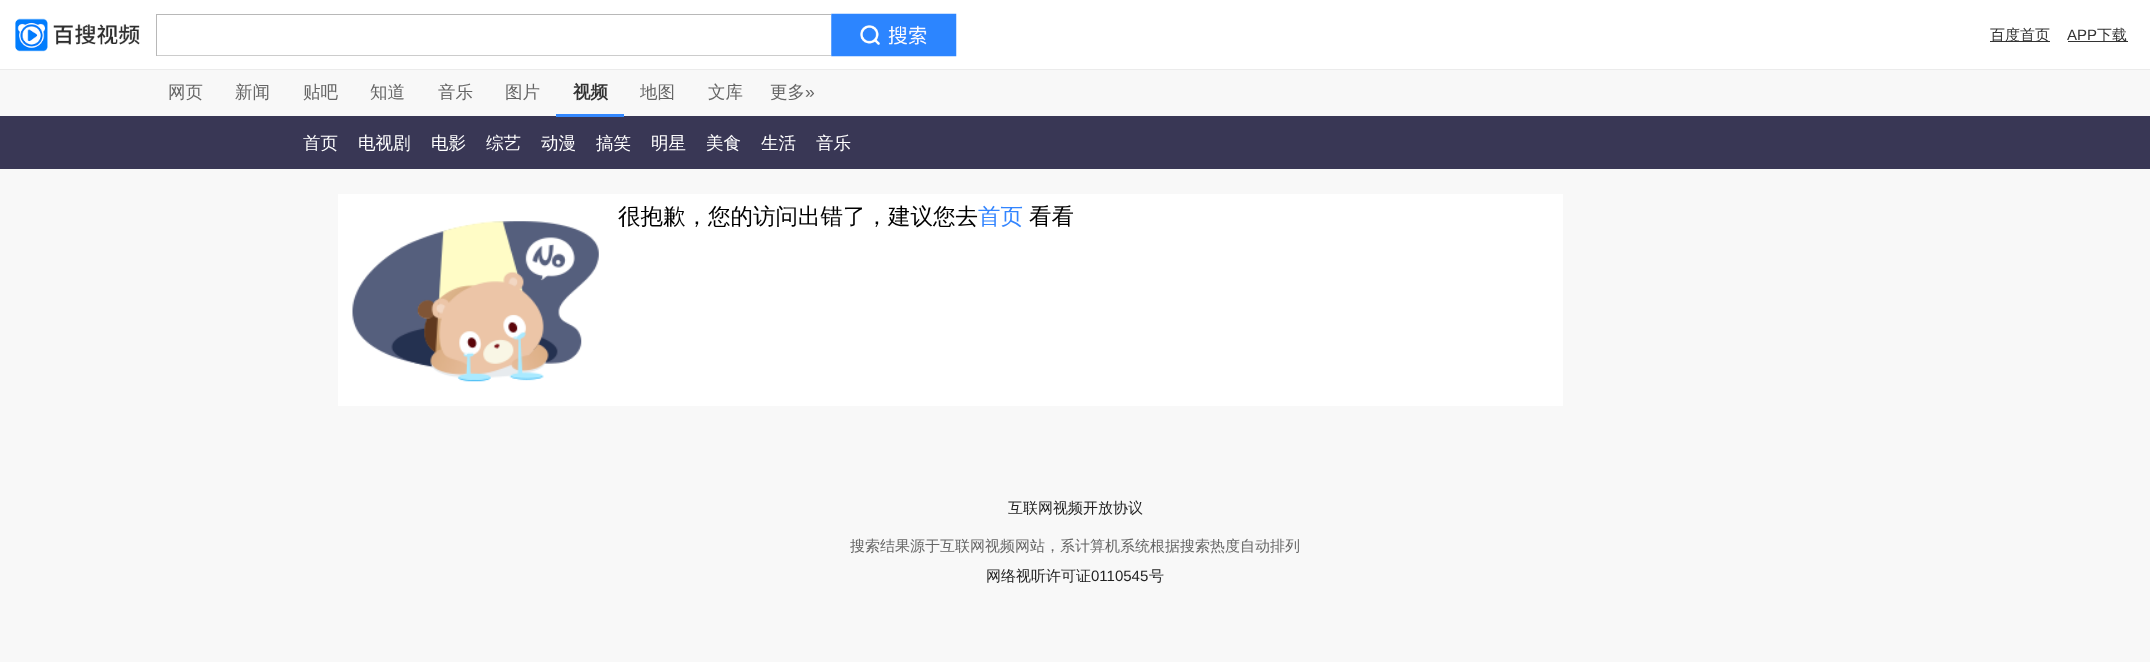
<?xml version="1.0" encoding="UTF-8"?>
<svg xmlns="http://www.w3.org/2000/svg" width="2150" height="662">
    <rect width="100%" height="100%" fill="#F8F8F8"/>
    <rect x="0" y="0" width="2150" height="69" fill="#FFFFFF"/>
    <rect x="0" y="69" width="2150" height="1" fill="#EBEBEB"/>
    <image x="15" y="18" width="125" height="34" href="img_01.png"/>
    <rect x="156" y="14" width="675" height="1" fill="#B8B8B8"/>
    <rect x="156" y="55" width="675" height="1" fill="#CCCCCC"/>
    <rect x="156" y="14" width="1" height="42" fill="#B8B8B8"/>
    <image x="831" y="13" width="126" height="44" href="img_02.png"/>
    <rect x="1990" y="41" width="60" height="1" fill="#333333"/>
    <text x="1990" y="40" font-family="WenQuanYi Zen Hei" font-size="15" font-weight="500" fill="#323232">百度首页</text>
    <text x="2067" y="40" font-family="Liberation Sans" font-size="15" fill="#323232">APP</text>
    <rect x="2068" y="41" width="60" height="1" fill="#333333"/>
    <text x="2097" y="40" font-family="WenQuanYi Zen Hei" font-size="15" font-weight="500" fill="#323232">下载</text>
    <text x="168" y="98" font-family="WenQuanYi Zen Hei" font-size="17.5" font-weight="500" fill="#666666">网页</text>
    <text x="235" y="98" font-family="WenQuanYi Zen Hei" font-size="17.5" font-weight="500" fill="#666666">新闻</text>
    <text x="303" y="98" font-family="WenQuanYi Zen Hei" font-size="17.5" font-weight="500" fill="#666666">贴吧</text>
    <text x="370" y="98" font-family="WenQuanYi Zen Hei" font-size="17.5" font-weight="500" fill="#666666">知道</text>
    <text x="438" y="98" font-family="WenQuanYi Zen Hei" font-size="17.5" font-weight="500" fill="#666666">音乐</text>
    <text x="505" y="98" font-family="WenQuanYi Zen Hei" font-size="17.5" font-weight="500" fill="#666666">图片</text>
    <rect x="0" y="116" width="2150" height="53" fill="#393755"/>
    <rect x="556" y="114" width="68" height="3" fill="#3388FF"/>
    <text x="573" y="98" font-family="WenQuanYi Zen Hei" font-size="17.5" font-weight="700" fill="#323232">视频</text>
    <text x="640" y="98" font-family="WenQuanYi Zen Hei" font-size="17.5" font-weight="500" fill="#666666">地图</text>
    <text x="708" y="98" font-family="WenQuanYi Zen Hei" font-size="17.5" font-weight="500" fill="#666666">文库</text>
    <text x="770" y="98" font-family="WenQuanYi Zen Hei" font-size="17.5" font-weight="500" fill="#666666">更多</text>
    <text x="805" y="98" font-family="Liberation Sans" font-size="17.5" fill="#666666">»</text>
    <text x="303" y="149" font-family="WenQuanYi Zen Hei" font-size="17.5" font-weight="500" fill="#FFFFFF">首页</text>
    <text x="358" y="149" font-family="WenQuanYi Zen Hei" font-size="17.5" font-weight="500" fill="#FFFFFF">电视剧</text>
    <text x="431" y="149" font-family="WenQuanYi Zen Hei" font-size="17.5" font-weight="500" fill="#FFFFFF">电影</text>
    <text x="486" y="149" font-family="WenQuanYi Zen Hei" font-size="17.5" font-weight="500" fill="#FFFFFF">综艺</text>
    <text x="541" y="149" font-family="WenQuanYi Zen Hei" font-size="17.5" font-weight="500" fill="#FFFFFF">动漫</text>
    <text x="596" y="149" font-family="WenQuanYi Zen Hei" font-size="17.5" font-weight="500" fill="#FFFFFF">搞笑</text>
    <text x="651" y="149" font-family="WenQuanYi Zen Hei" font-size="17.5" font-weight="500" fill="#FFFFFF">明星</text>
    <text x="706" y="149" font-family="WenQuanYi Zen Hei" font-size="17.5" font-weight="500" fill="#FFFFFF">美食</text>
    <text x="761" y="149" font-family="WenQuanYi Zen Hei" font-size="17.5" font-weight="500" fill="#FFFFFF">生活</text>
    <text x="816" y="149" font-family="WenQuanYi Zen Hei" font-size="17.5" font-weight="500" fill="#FFFFFF">音乐</text>
    <rect x="338" y="194" width="1225" height="212" fill="#FFFFFF"/>
    <text x="618" y="224" font-family="WenQuanYi Zen Hei" font-size="22.5" font-weight="500" fill="#000000">很抱歉，您的访问出错了，建议您去</text>
    <text x="978" y="224" font-family="WenQuanYi Zen Hei" font-size="22.5" font-weight="500" fill="#3385FF">首页</text>
    <text x="1029" y="224" font-family="WenQuanYi Zen Hei" font-size="22.5" font-weight="500" fill="#000000">看看</text>
    <image x="352" y="221" width="247" height="161" href="img_03.png"/>
    <text x="1008" y="513" font-family="WenQuanYi Zen Hei" font-size="15" font-weight="500" fill="#222222">互联网视频开放协议</text>
    <text x="850" y="551" font-family="WenQuanYi Zen Hei" font-size="15" font-weight="500" fill="#666666">搜索结果源于互联网视频网站，系计算机系统根据搜索热度自动排列</text>
    <text x="986" y="581" font-family="WenQuanYi Zen Hei" font-size="15" font-weight="500" fill="#222222">网络视听许可证</text>
    <text x="1091" y="581" font-family="Liberation Sans" font-size="15" fill="#222222">0110545</text>
    <text x="1149" y="581" font-family="WenQuanYi Zen Hei" font-size="15" font-weight="500" fill="#222222">号</text>
</svg>
